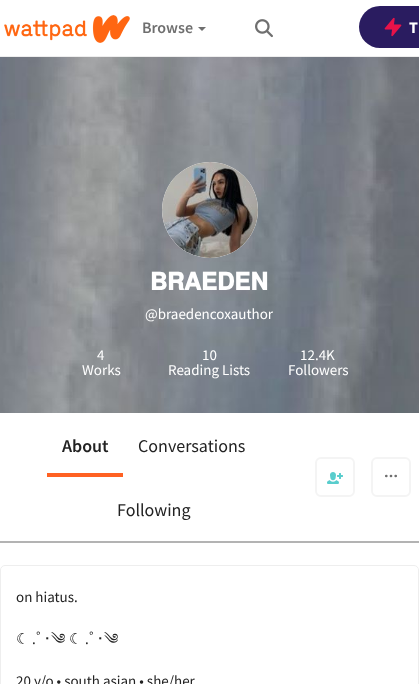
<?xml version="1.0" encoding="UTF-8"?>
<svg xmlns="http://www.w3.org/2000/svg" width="419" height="684">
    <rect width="100%" height="100%" fill="#FFFFFF"/>
    <rect x="0" y="56" width="419" height="1" fill="#EEEEEE"/>
    <image x="4" y="15" width="126" height="28" href="img_01.png"/>
    <text x="142" y="33" font-family="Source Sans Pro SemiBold" font-size="16" font-weight="600" fill="#6F6F6F">Browse</text>
    <path d="M 198 27 H 206 L 202 31 Z" fill="#6F6F6F"/>
    <image x="255" y="19" width="18" height="19" href="img_02.png"/>
    <rect x="359" y="6" width="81" height="42" rx="21" fill="#2A1C60"/>
    <image x="384" y="17" width="18" height="20" href="img_03.png"/>
    <text x="409" y="33" font-family="Source Sans Pro" font-size="16" font-weight="700" fill="#FFFFFF">T</text>
    <image x="0" y="57" width="419" height="356" href="img_04.png"/>
    <circle cx="210" cy="210" r="48" fill="#EEEEEE"/>
    <image x="162" y="162" width="96" height="96" href="img_05.png"/>
    <text x="150" y="290" font-family="FreeSans" font-size="24" font-weight="700" fill="#FFFFFF">𝐁𝐑𝐀𝐄𝐃𝐄𝐍</text>
    <text x="145" y="319" font-family="Source Sans Pro" font-size="15" fill="#FFFFFF">@braedencoxauthor</text>
    <text x="97" y="360" font-family="Source Sans Pro" font-size="15" fill="#FFFFFF">4</text>
    <text x="82" y="375" font-family="Source Sans Pro" font-size="15" fill="#FFFFFF">Works</text>
    <text x="202" y="360" font-family="Source Sans Pro" font-size="15" fill="#FFFFFF">10</text>
    <text x="168" y="375" font-family="Source Sans Pro" font-size="15" fill="#FFFFFF">Reading Lists</text>
    <text x="300" y="360" font-family="Source Sans Pro" font-size="15" fill="#FFFFFF">12.4K</text>
    <text x="288" y="375" font-family="Source Sans Pro" font-size="15" fill="#FFFFFF">Followers</text>
    <rect x="0" y="541" width="419" height="2" fill="#B3B3B3"/>
    <rect x="47" y="473" width="76" height="4" fill="#FF6122"/>
    <text x="62" y="452" font-family="Source Sans Pro SemiBold" font-size="18" font-weight="600" fill="#222222">About</text>
    <text x="138" y="452" font-family="Source Sans Pro" font-size="18" fill="#222222">Conversations</text>
    <text x="117" y="516" font-family="Source Sans Pro" font-size="18" fill="#222222">Following</text>
    <rect x="316" y="458" width="38" height="38" rx="5" fill="none" stroke="#F4F4F4" stroke-width="2"/>
    <image x="327" y="472" width="16" height="12" href="img_06.png"/>
    <rect x="372" y="458" width="38" height="38" rx="5" fill="none" stroke="#F4F4F4" stroke-width="2"/>
    <circle cx="386.3" cy="476" r="0.7" fill="none" stroke="#6F6F6F" stroke-width="1.3"/>
    <circle cx="391" cy="476" r="0.7" fill="none" stroke="#6F6F6F" stroke-width="1.3"/>
    <circle cx="395.7" cy="476" r="0.7" fill="none" stroke="#6F6F6F" stroke-width="1.3"/>
    <rect x="0.5" y="565.5" width="418" height="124" rx="4.5" fill="none" stroke="#EEEEEE"/>
    <text x="16" y="602" font-family="Source Sans Pro" font-size="15" fill="#222222">on hiatus.</text>
    <text x="16" y="644" font-family="DejaVu Sans" font-size="15" fill="#222222">☾</text>
    <text x="32" y="644" font-family="Source Sans Pro" font-size="15" fill="#222222">.</text>
    <text x="36" y="644" font-family="IPAGothic" font-size="15" fill="#222222">ﾟ･</text>
    <text x="51" y="644" font-family="Noto Serif Tibetan" font-size="15" fill="#222222">༄</text>
    <text x="69" y="644" font-family="DejaVu Sans" font-size="15" fill="#222222">☾</text>
    <text x="85" y="644" font-family="Source Sans Pro" font-size="15" fill="#222222">.</text>
    <text x="89" y="644" font-family="IPAGothic" font-size="15" fill="#222222">ﾟ･</text>
    <text x="104" y="644" font-family="Noto Serif Tibetan" font-size="15" fill="#222222">༄</text>
    <text x="16" y="686" font-family="Source Sans Pro" font-size="15" fill="#222222">20 y/o • south asian • she/her</text>
</svg>
